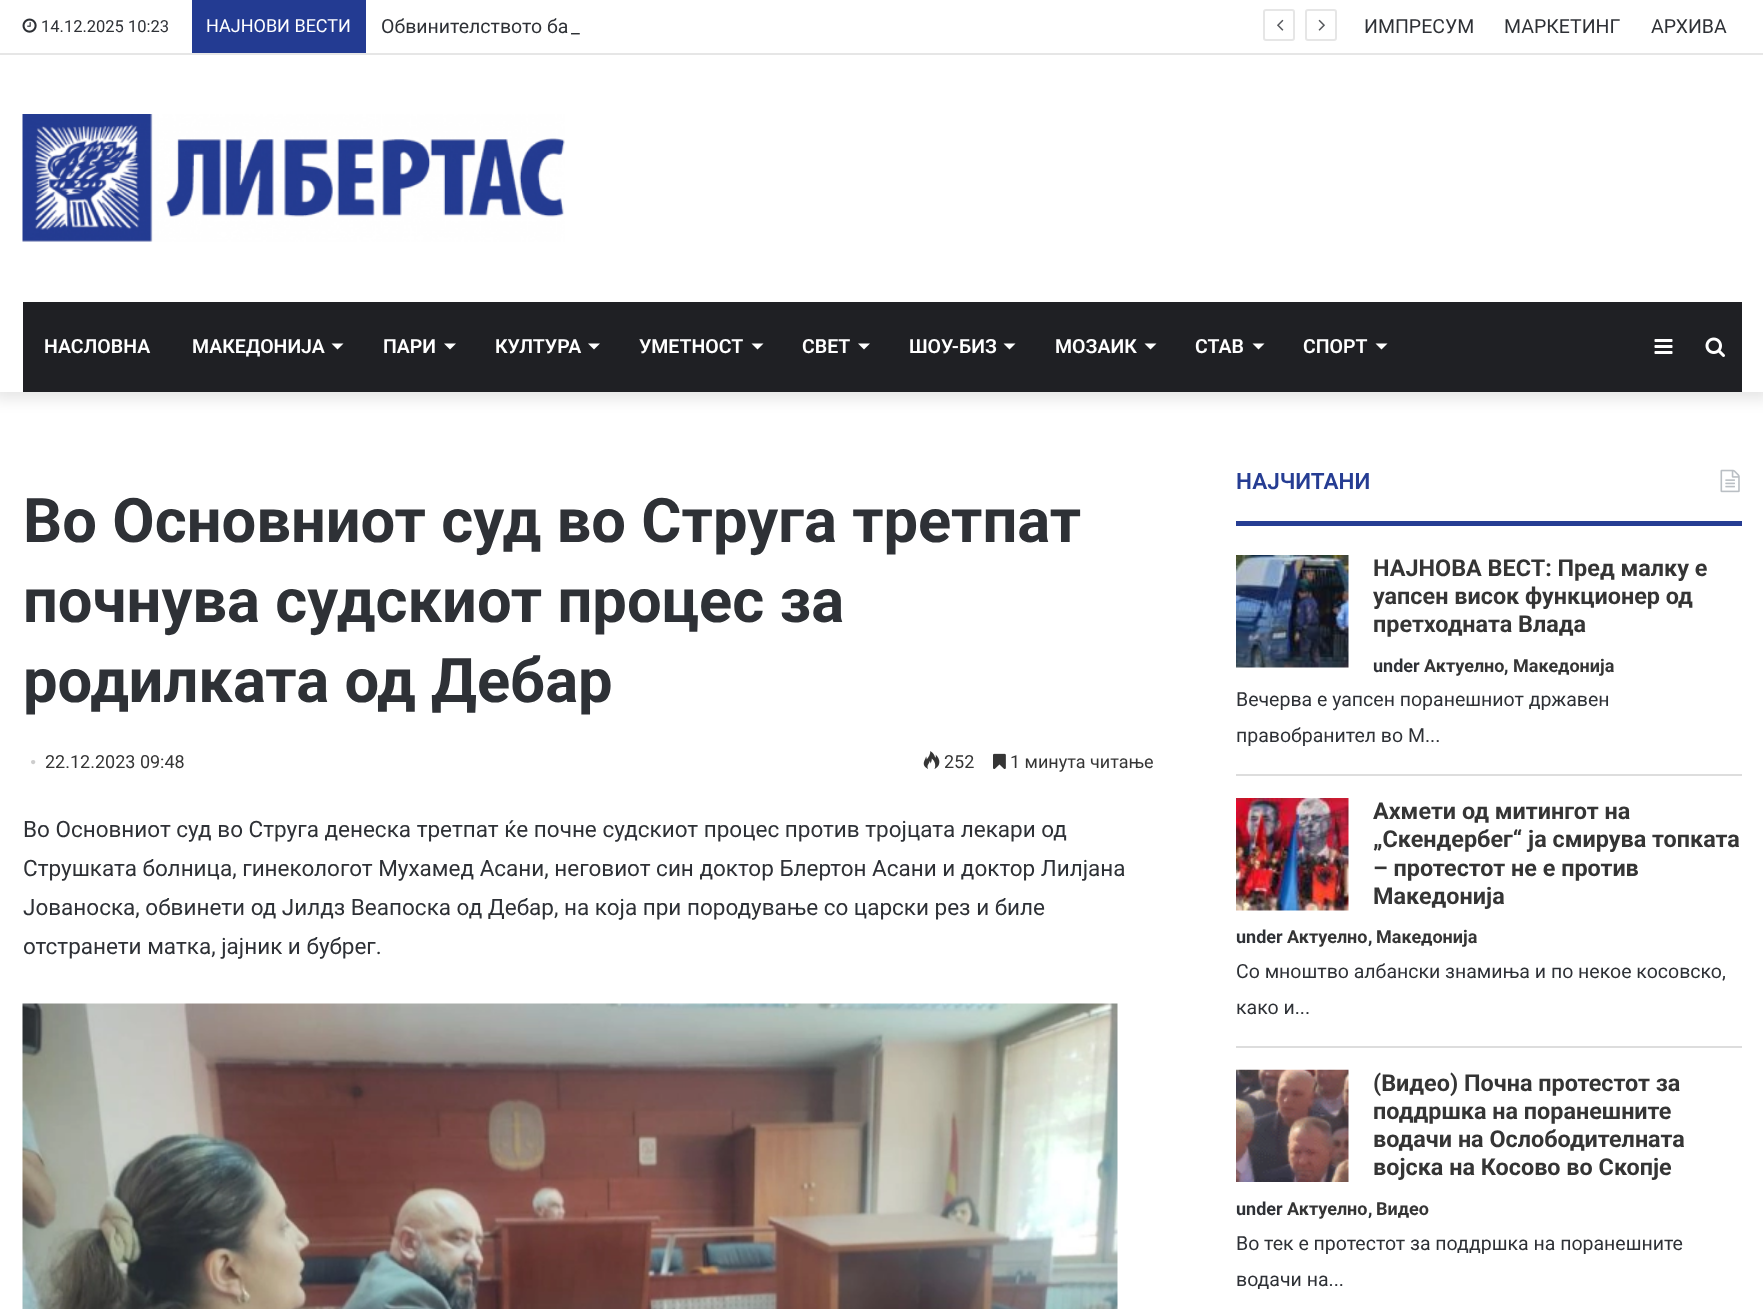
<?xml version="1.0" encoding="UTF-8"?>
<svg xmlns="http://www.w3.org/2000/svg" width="1763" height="1309">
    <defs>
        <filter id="blur1" x="-50%" y="-200%" width="200%" height="500%"><feGaussianBlur stdDeviation="7.5"/></filter>
    </defs>
    <rect width="100%" height="100%" fill="#FFFFFF"/>
    <rect x="-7" y="-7" width="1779" height="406" fill="#000000" fill-opacity="0.1" filter="url(#blur1)"/>
    <rect x="0" y="0" width="1763" height="392" fill="#FFFFFF"/>
    <rect x="0" y="53" width="1763" height="2" fill="#E6E6E6"/>
    <image x="22" y="18" width="15" height="15" href="img_01.png"/>
    <text x="41" y="32" font-family="Roboto" font-size="16.5" fill="#2E3136">14.12.2025 10:23</text>
    <rect x="192" y="0" width="174" height="53" fill="#233B92"/>
    <text x="206" y="32" font-family="Roboto" font-size="18" fill="#FFFFFF">НАЈНОВИ ВЕСТИ</text>
    <text x="381" y="33" font-family="Roboto" font-size="19.5" fill="#2E3136">Обвинителството ба</text>
    <text x="571" y="33" font-family="Roboto" font-size="19.5" fill="#2E3136">_</text>
    <rect x="1264" y="10" width="30" height="30" rx="2" fill="none" stroke="#E6E6E6" stroke-width="2"/>
    <image x="1277" y="19" width="7" height="12" href="img_02.png"/>
    <rect x="1306" y="10" width="30" height="30" rx="2" fill="none" stroke="#E6E6E6" stroke-width="2"/>
    <image x="1318" y="19" width="7" height="12" href="img_03.png"/>
    <text x="1364" y="33" font-family="Roboto" font-size="19.5" fill="#2E3136">ИМПРЕСУМ</text>
    <text x="1504" y="33" font-family="Roboto" font-size="19.5" fill="#2E3136">МАРКЕТИНГ</text>
    <text x="1651" y="33" font-family="Roboto" font-size="19.5" fill="#2E3136">АРХИВА</text>
    <image x="22" y="114" width="543" height="128" href="img_04.png"/>
    <rect x="23" y="302" width="1719" height="90" fill="#1F2024"/>
    <text x="44" y="353" font-family="Roboto" font-size="19.5" font-weight="600" fill="#FFFFFF">НАСЛОВНА</text>
    <text x="192" y="353" font-family="Roboto" font-size="19.5" font-weight="600" fill="#FFFFFF">МАКЕДОНИЈА</text>
    <path d="M 331.5 343.5 H 343.5 L 337.5 349.5 Z" fill="#FFFFFF"/>
    <text x="383" y="353" font-family="Roboto" font-size="19.5" font-weight="600" fill="#FFFFFF">ПАРИ</text>
    <path d="M 444 343.5 H 456 L 450 349.5 Z" fill="#FFFFFF"/>
    <text x="495" y="353" font-family="Roboto" font-size="19.5" font-weight="600" fill="#FFFFFF">КУЛТУРА</text>
    <path d="M 588 343.5 H 600 L 594 349.5 Z" fill="#FFFFFF"/>
    <text x="639" y="353" font-family="Roboto" font-size="19.5" font-weight="600" fill="#FFFFFF">УМЕТНОСТ</text>
    <path d="M 751.5 343.5 H 763.5 L 757.5 349.5 Z" fill="#FFFFFF"/>
    <text x="802" y="353" font-family="Roboto" font-size="19.5" font-weight="600" fill="#FFFFFF">СВЕТ</text>
    <path d="M 858 343.5 H 870 L 864 349.5 Z" fill="#FFFFFF"/>
    <text x="909" y="353" font-family="Roboto" font-size="19.5" font-weight="600" fill="#FFFFFF">ШОУ-БИЗ</text>
    <path d="M 1003.5 343.5 H 1015.5 L 1009.5 349.5 Z" fill="#FFFFFF"/>
    <text x="1055" y="353" font-family="Roboto" font-size="19.5" font-weight="600" fill="#FFFFFF">МОЗАИК</text>
    <path d="M 1144.5 343.5 H 1156.5 L 1150.5 349.5 Z" fill="#FFFFFF"/>
    <text x="1195" y="353" font-family="Roboto" font-size="19.5" font-weight="600" fill="#FFFFFF">СТАВ</text>
    <path d="M 1252.5 343.5 H 1264.5 L 1258.5 349.5 Z" fill="#FFFFFF"/>
    <text x="1303" y="353" font-family="Roboto" font-size="19.5" font-weight="600" fill="#FFFFFF">СПОРТ</text>
    <path d="M 1375.5 343.5 H 1387.5 L 1381.5 349.5 Z" fill="#FFFFFF"/>
    <image x="1654" y="339" width="19" height="15" href="img_05.png"/>
    <image x="1705" y="337" width="20" height="20" href="img_06.png"/>
    <text font-family="Roboto" font-size="61.5" font-weight="700" fill="#2E3136">
        <tspan x="23" y="542">Во Основниот суд во Струга третпат</tspan>
        <tspan x="23" y="622">почнува судскиот процес за</tspan>
        <tspan x="23" y="702">родилката од Дебар</tspan>
    </text>
    <text x="30" y="768" font-family="Liberation Serif" font-size="18" fill="#CDCDCD">•</text>
    <text x="45" y="768" font-family="Roboto" font-size="18" fill="#353535">22.12.2023 09:48</text>
    <image x="923" y="751" width="17" height="18" href="img_07.png"/>
    <text x="944" y="768" font-family="Roboto" font-size="18" fill="#353535">252</text>
    <image x="993" y="753" width="13" height="16" href="img_08.png"/>
    <text x="1010" y="768" font-family="Roboto" font-size="18" fill="#353535">1 минута читање</text>
    <text font-family="Roboto" font-size="22.5" fill="#2E3136">
        <tspan x="23" y="837">Во Основниот суд во Струга денеска третпат ќе почне судскиот процес против тројцата лекари од</tspan>
        <tspan x="23" y="876">Струшката болница, гинекологот Мухамед Асани, неговиот син доктор Блертон Асани и доктор Лилјана</tspan>
        <tspan x="23" y="915">Јованоска, обвинети од Јилдз Веапоска од Дебар, на која при породување со царски рез и биле</tspan>
        <tspan x="23" y="954">отстранети матка, јајник и бубрег.</tspan>
    </text>
    <image x="22" y="1003" width="1096" height="306" href="img_09.png"/>
    <rect x="1236" y="521" width="506" height="5" fill="#263D93"/>
    <text x="1236" y="489" font-family="Roboto" font-size="22.5" font-weight="600" fill="#263D93">НАЈЧИТАНИ</text>
    <image x="1720" y="469" width="20" height="24" href="img_10.png"/>
    <rect x="1236" y="774" width="506" height="2" fill="#DDDDDD"/>
    <image x="1236" y="555" width="113" height="113" href="img_11.png"/>
    <text font-family="Roboto" font-size="23.4" font-weight="700" fill="#353535">
        <tspan x="1373" y="576">НАЈНОВА ВЕСТ: Пред малку е</tspan>
        <tspan x="1373" y="604">уапсен висок функционер од</tspan>
        <tspan x="1373" y="632">претходната Влада</tspan>
    </text>
    <text x="1373" y="672" font-family="Roboto" font-size="18" font-weight="700" fill="#2E3136">under</text>
    <text x="1424" y="672" font-family="Roboto" font-size="18" font-weight="700" fill="#353535">Актуелно</text>
    <text x="1504" y="672" font-family="Roboto" font-size="18" font-weight="700" fill="#2E3136">,</text>
    <text x="1513" y="672" font-family="Roboto" font-size="18" font-weight="700" fill="#353535">Македонија</text>
    <text font-family="Roboto" font-size="19.5" fill="#2E3136">
        <tspan x="1236" y="706">Вечерва е уапсен поранешниот државен</tspan>
        <tspan x="1236" y="742">правобранител во М...</tspan>
    </text>
    <rect x="1236" y="1046" width="506" height="2" fill="#DDDDDD"/>
    <image x="1236" y="798" width="113" height="113" href="img_12.png"/>
    <text font-family="Roboto" font-size="23.4" font-weight="700" fill="#353535">
        <tspan x="1373" y="819">Ахмети од митингот на</tspan>
        <tspan x="1373" y="847">„Скендербег“ ја смирува топката</tspan>
        <tspan x="1373" y="876">– протестот не е против</tspan>
        <tspan x="1373" y="904">Македонија</tspan>
    </text>
    <text x="1236" y="943" font-family="Roboto" font-size="18" font-weight="700" fill="#2E3136">under</text>
    <text x="1287" y="943" font-family="Roboto" font-size="18" font-weight="700" fill="#353535">Актуелно</text>
    <text x="1368" y="943" font-family="Roboto" font-size="18" font-weight="700" fill="#2E3136">,</text>
    <text x="1376" y="943" font-family="Roboto" font-size="18" font-weight="700" fill="#353535">Македонија</text>
    <text font-family="Roboto" font-size="19.5" fill="#2E3136">
        <tspan x="1236" y="978">Со мноштво албански знамиња и по некое косовско,</tspan>
        <tspan x="1236" y="1014">како и...</tspan>
    </text>
    <image x="1236" y="1069" width="113" height="113" href="img_13.png"/>
    <text font-family="Roboto" font-size="23.4" font-weight="700" fill="#353535">
        <tspan x="1373" y="1091">(Видео) Почна протестот за</tspan>
        <tspan x="1373" y="1119">поддршка на поранешните</tspan>
        <tspan x="1373" y="1147">водачи на Ослободителната</tspan>
        <tspan x="1373" y="1175">војска на Косово во Скопје</tspan>
    </text>
    <text x="1236" y="1215" font-family="Roboto" font-size="18" font-weight="700" fill="#2E3136">under</text>
    <text x="1287" y="1215" font-family="Roboto" font-size="18" font-weight="700" fill="#353535">Актуелно</text>
    <text x="1368" y="1215" font-family="Roboto" font-size="18" font-weight="700" fill="#2E3136">,</text>
    <text x="1376" y="1215" font-family="Roboto" font-size="18" font-weight="700" fill="#353535">Видео</text>
    <text font-family="Roboto" font-size="19.5" fill="#2E3136">
        <tspan x="1236" y="1250">Во тек е протестот за поддршка на поранешните</tspan>
        <tspan x="1236" y="1286">водачи на...</tspan>
    </text>
</svg>
